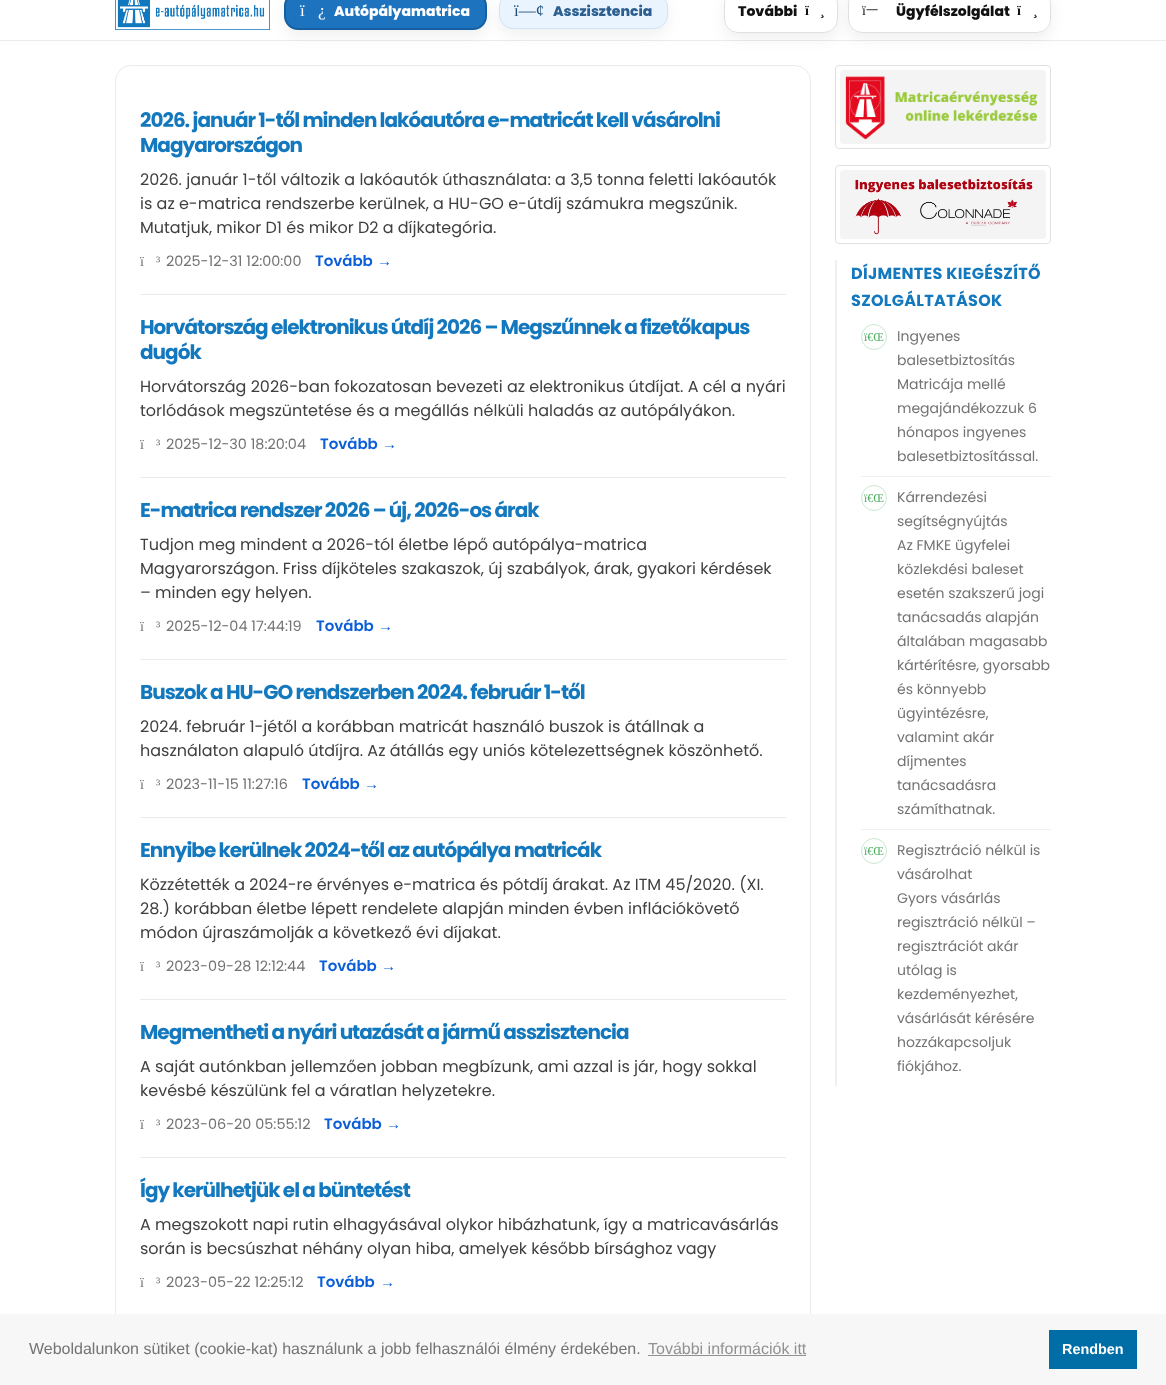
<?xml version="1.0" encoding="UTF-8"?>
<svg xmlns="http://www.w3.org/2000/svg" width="1166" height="1385">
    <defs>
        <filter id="blur1" x="-50%" y="-200%" width="200%" height="500%"><feGaussianBlur stdDeviation="7"/></filter>
    </defs>
    <rect width="100%" height="100%" fill="#FFFFFF"/>
    <rect x="0" y="40" width="1166" height="1" fill="#EBEBEB"/>
    <image x="115" y="0" width="155" height="30" href="img_01.png"/>
    <rect x="284" y="-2" width="203" height="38" rx="14" fill="#000000" fill-opacity="0.06" filter="url(#blur1)"/>
    <rect x="285" y="-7" width="201" height="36" rx="13" fill="#1E73BE" stroke="#155FA0" stroke-width="2"/>
    <text x="300" y="16" font-family="Liberation Serif" font-size="17" fill="#FFFFFF">ï</text>
    <text x="318" y="16" font-family="Liberation Serif" font-size="17" fill="#FFFFFF">¿</text>
    <text x="334" y="16" font-family="Poppins" font-size="14" font-weight="800" fill="#FFFFFF">Autópályamatrica</text>
    <rect x="499" y="-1" width="169" height="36" rx="14" fill="#000000" fill-opacity="0.06" filter="url(#blur1)"/>
    <rect x="499.5" y="-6.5" width="168" height="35" rx="13.5" fill="#E9F4FF" stroke="#CFE4F7"/>
    <text x="514" y="16" font-family="Liberation Serif" font-size="17" fill="#1F4F78">ï—¢</text>
    <text x="553" y="16" font-family="Poppins" font-size="14" font-weight="800" fill="#2C5F8F">Asszisztencia</text>
    <rect x="724" y="-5" width="114" height="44" rx="14" fill="#000000" fill-opacity="0.06" filter="url(#blur1)"/>
    <rect x="724" y="-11" width="114" height="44" rx="14" fill="#FFFFFF"/>
    <rect x="724.5" y="-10.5" width="113" height="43" rx="13.5" fill="none" stroke="#000000" stroke-opacity="0.12"/>
    <text x="738" y="16" font-family="Poppins" font-size="14" font-weight="800" fill="#111111">További</text>
    <text x="805" y="15" font-family="Liberation Serif" font-size="14" font-weight="700" fill="#111111">ï</text>
    <text x="820" y="15" font-family="Liberation Serif" font-size="14" font-weight="700" fill="#111111">¸</text>
    <rect x="848" y="-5" width="203" height="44" rx="14" fill="#000000" fill-opacity="0.06" filter="url(#blur1)"/>
    <rect x="848" y="-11" width="203" height="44" rx="14" fill="#FFFFFF"/>
    <rect x="848.5" y="-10.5" width="202" height="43" rx="13.5" fill="none" stroke="#000000" stroke-opacity="0.12"/>
    <text x="862" y="15" font-family="Liberation Serif" font-size="14" fill="#111111">ï</text>
    <image x="866" y="9" width="12" height="2" href="img_02.png"/>
    <text x="896" y="16" font-family="Poppins" font-size="14" font-weight="800" fill="#111111">Ügyfélszolgálat</text>
    <text x="1017" y="15" font-family="Liberation Serif" font-size="14" font-weight="700" fill="#111111">ï</text>
    <text x="1033" y="15" font-family="Liberation Serif" font-size="14" font-weight="700" fill="#111111">¸</text>
    <rect x="115.5" y="65.5" width="695" height="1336" rx="15.5" fill="none" stroke="#EBEBEB"/>
    <rect x="140" y="294" width="646" height="1" fill="#EBEBEB"/>
    <text font-family="Poppins" font-size="20" font-weight="700" letter-spacing="-1" fill="#1378BE">
        <tspan x="140" y="127">2026. január 1-től minden lakóautóra e-matricát kell vásárolni</tspan>
        <tspan x="140" y="152">Magyarországon</tspan>
    </text>
    <text font-family="Poppins" font-size="16" fill="#404040">
        <tspan x="140" y="185">2026. január 1-től változik a lakóautók úthasználata: a 3,5 tonna feletti lakóautók</tspan>
        <tspan x="140" y="209">is az e-matrica rendszerbe kerülnek, a HU-GO e-útdíj számukra megszűnik.</tspan>
        <tspan x="140" y="233">Mutatjuk, mikor D1 és mikor D2 a díjkategória.</tspan>
    </text>
    <text x="140" y="266" font-family="Liberation Serif" font-size="14.4" fill="#737373">ï</text>
    <text x="156" y="266" font-family="Liberation Serif" font-size="14.4" fill="#737373">³</text>
    <text x="166" y="266" font-family="Poppins" font-size="14.4" fill="#737373">2025-12-31 12:00:00</text>
    <text x="315" y="266" font-family="Poppins" font-size="15" font-weight="600" fill="#0B5ED7">Tovább</text>
    <text x="377" y="266" font-family="Liberation Sans" font-size="15" font-weight="700" fill="#0B5ED7">→</text>
    <rect x="140" y="477" width="646" height="1" fill="#EBEBEB"/>
    <text font-family="Poppins" font-size="20" font-weight="700" letter-spacing="-1" fill="#1378BE">
        <tspan x="140" y="334">Horvátország elektronikus útdíj 2026 – Megszűnnek a fizetőkapus</tspan>
        <tspan x="140" y="359">dugók</tspan>
    </text>
    <text font-family="Poppins" font-size="16" fill="#404040">
        <tspan x="140" y="392">Horvátország 2026-ban fokozatosan bevezeti az elektronikus útdíjat. A cél a nyári</tspan>
        <tspan x="140" y="416">torlódások megszüntetése és a megállás nélküli haladás az autópályákon.</tspan>
    </text>
    <text x="140" y="449" font-family="Liberation Serif" font-size="14.4" fill="#737373">ï</text>
    <text x="156" y="449" font-family="Liberation Serif" font-size="14.4" fill="#737373">³</text>
    <text x="166" y="449" font-family="Poppins" font-size="14.4" fill="#737373">2025-12-30 18:20:04</text>
    <text x="320" y="449" font-family="Poppins" font-size="15" font-weight="600" fill="#0B5ED7">Tovább</text>
    <text x="382" y="449" font-family="Liberation Sans" font-size="15" font-weight="700" fill="#0B5ED7">→</text>
    <rect x="140" y="659" width="646" height="1" fill="#EBEBEB"/>
    <text x="140" y="517" font-family="Poppins" font-size="20" font-weight="700" letter-spacing="-1" fill="#1378BE">E-matrica rendszer 2026 – új, 2026-os árak</text>
    <text font-family="Poppins" font-size="16" fill="#404040">
        <tspan x="140" y="550">Tudjon meg mindent a 2026-tól életbe lépő autópálya-matrica</tspan>
        <tspan x="140" y="574">Magyarországon. Friss díjköteles szakaszok, új szabályok, árak, gyakori kérdések</tspan>
        <tspan x="140" y="598">– minden egy helyen.</tspan>
    </text>
    <text x="140" y="631" font-family="Liberation Serif" font-size="14.4" fill="#737373">ï</text>
    <text x="156" y="631" font-family="Liberation Serif" font-size="14.4" fill="#737373">³</text>
    <text x="166" y="631" font-family="Poppins" font-size="14.4" fill="#737373">2025-12-04 17:44:19</text>
    <text x="316" y="631" font-family="Poppins" font-size="15" font-weight="600" fill="#0B5ED7">Tovább</text>
    <text x="378" y="631" font-family="Liberation Sans" font-size="15" font-weight="700" fill="#0B5ED7">→</text>
    <rect x="140" y="817" width="646" height="1" fill="#EBEBEB"/>
    <text x="140" y="699" font-family="Poppins" font-size="20" font-weight="700" letter-spacing="-1" fill="#1378BE">Buszok a HU-GO rendszerben 2024. február 1-től</text>
    <text font-family="Poppins" font-size="16" fill="#404040">
        <tspan x="140" y="732">2024. február 1-jétől a korábban matricát használó buszok is átállnak a</tspan>
        <tspan x="140" y="756">használaton alapuló útdíjra. Az átállás egy uniós kötelezettségnek köszönhető.</tspan>
    </text>
    <text x="140" y="789" font-family="Liberation Serif" font-size="14.4" fill="#737373">ï</text>
    <text x="156" y="789" font-family="Liberation Serif" font-size="14.4" fill="#737373">³</text>
    <text x="166" y="789" font-family="Poppins" font-size="14.4" fill="#737373">2023-11-15 11:27:16</text>
    <text x="302" y="789" font-family="Poppins" font-size="15" font-weight="600" fill="#0B5ED7">Tovább</text>
    <text x="364" y="789" font-family="Liberation Sans" font-size="15" font-weight="700" fill="#0B5ED7">→</text>
    <rect x="140" y="999" width="646" height="1" fill="#EBEBEB"/>
    <text x="140" y="857" font-family="Poppins" font-size="20" font-weight="700" letter-spacing="-1" fill="#1378BE">Ennyibe kerülnek 2024-től az autópálya matricák</text>
    <text font-family="Poppins" font-size="16" fill="#404040">
        <tspan x="140" y="890">Közzétették a 2024-re érvényes e-matrica és pótdíj árakat. Az ITM 45/2020. (XI.</tspan>
        <tspan x="140" y="914">28.) korábban életbe lépett rendelete alapján minden évben inflációkövető</tspan>
        <tspan x="140" y="938">módon újraszámolják a következő évi díjakat.</tspan>
    </text>
    <text x="140" y="971" font-family="Liberation Serif" font-size="14.4" fill="#737373">ï</text>
    <text x="156" y="971" font-family="Liberation Serif" font-size="14.4" fill="#737373">³</text>
    <text x="166" y="971" font-family="Poppins" font-size="14.4" fill="#737373">2023-09-28 12:12:44</text>
    <text x="319" y="971" font-family="Poppins" font-size="15" font-weight="600" fill="#0B5ED7">Tovább</text>
    <text x="381" y="971" font-family="Liberation Sans" font-size="15" font-weight="700" fill="#0B5ED7">→</text>
    <rect x="140" y="1157" width="646" height="1" fill="#EBEBEB"/>
    <text x="140" y="1039" font-family="Poppins" font-size="20" font-weight="700" letter-spacing="-1" fill="#1378BE">Megmentheti a nyári utazását a jármű asszisztencia</text>
    <text font-family="Poppins" font-size="16" fill="#404040">
        <tspan x="140" y="1072">A saját autónkban jellemzően jobban megbízunk, ami azzal is jár, hogy sokkal</tspan>
        <tspan x="140" y="1096">kevésbé készülünk fel a váratlan helyzetekre.</tspan>
    </text>
    <text x="140" y="1129" font-family="Liberation Serif" font-size="14.4" fill="#737373">ï</text>
    <text x="156" y="1129" font-family="Liberation Serif" font-size="14.4" fill="#737373">³</text>
    <text x="166" y="1129" font-family="Poppins" font-size="14.4" fill="#737373">2023-06-20 05:55:12</text>
    <text x="324" y="1129" font-family="Poppins" font-size="15" font-weight="600" fill="#0B5ED7">Tovább</text>
    <text x="386" y="1129" font-family="Liberation Sans" font-size="15" font-weight="700" fill="#0B5ED7">→</text>
    <text x="140" y="1197" font-family="Poppins" font-size="20" font-weight="700" letter-spacing="-1" fill="#1378BE">Így kerülhetjük el a büntetést</text>
    <text font-family="Poppins" font-size="16" fill="#404040">
        <tspan x="140" y="1230">A megszokott napi rutin elhagyásával olykor hibázhatunk, így a matricavásárlás</tspan>
        <tspan x="140" y="1254">során is becsúszhat néhány olyan hiba, amelyek később bírsághoz vagy</tspan>
    </text>
    <text x="140" y="1287" font-family="Liberation Serif" font-size="14.4" fill="#737373">ï</text>
    <text x="156" y="1287" font-family="Liberation Serif" font-size="14.4" fill="#737373">³</text>
    <text x="166" y="1287" font-family="Poppins" font-size="14.4" fill="#737373">2023-05-22 12:25:12</text>
    <text x="317" y="1287" font-family="Poppins" font-size="15" font-weight="600" fill="#0B5ED7">Tovább</text>
    <text x="380" y="1287" font-family="Liberation Sans" font-size="15" font-weight="700" fill="#0B5ED7">→</text>
    <rect x="835.5" y="65.5" width="215" height="83" rx="3.5" fill="none" stroke="#DEE2E6"/>
    <image x="840" y="70" width="206" height="74" href="img_03.png"/>
    <rect x="835.5" y="165.5" width="215" height="78" rx="3.5" fill="none" stroke="#DEE2E6"/>
    <image x="840" y="170" width="206" height="69" href="img_04.png"/>
    <rect x="835" y="260" width="2" height="826" fill="#EFEFEF"/>
    <text font-family="Poppins" font-size="16" font-weight="700" letter-spacing="0.3" fill="#1378BE">
        <tspan x="851" y="279">DÍJMENTES KIEGÉSZÍTŐ</tspan>
        <tspan x="851" y="306">SZOLGÁLTATÁSOK</tspan>
    </text>
    <circle cx="874" cy="337" r="12.5" fill="none" stroke="#CBE7D0"/>
    <text x="864" y="341" font-family="Liberation Serif" font-size="12" fill="#4DAE5F">ï€Œ</text>
    <text font-family="Poppins" font-size="14" fill="#737373">
        <tspan x="897" y="341">Ingyenes</tspan>
        <tspan x="897" y="365">balesetbiztosítás</tspan>
        <tspan x="897" y="389">Matricája mellé</tspan>
        <tspan x="897" y="413">megajándékozzuk 6</tspan>
        <tspan x="897" y="437">hónapos ingyenes</tspan>
        <tspan x="897" y="461">balesetbiztosítással.</tspan>
    </text>
    <rect x="861" y="476" width="190" height="1" fill="#F0F0F0"/>
    <circle cx="874" cy="498" r="12.5" fill="none" stroke="#CBE7D0"/>
    <text x="864" y="502" font-family="Liberation Serif" font-size="12" fill="#4DAE5F">ï€Œ</text>
    <text font-family="Poppins" font-size="14" fill="#737373">
        <tspan x="897" y="502">Kárrendezési</tspan>
        <tspan x="897" y="526">segítségnyújtás</tspan>
        <tspan x="897" y="550">Az FMKE ügyfelei</tspan>
        <tspan x="897" y="574">közlekdési baleset</tspan>
        <tspan x="897" y="598">esetén szakszerű jogi</tspan>
        <tspan x="897" y="622">tanácsadás alapján</tspan>
        <tspan x="897" y="646">általában magasabb</tspan>
        <tspan x="897" y="670">kártérítésre, gyorsabb</tspan>
        <tspan x="897" y="694">és könnyebb</tspan>
        <tspan x="897" y="718">ügyintézésre,</tspan>
        <tspan x="897" y="742">valamint akár</tspan>
        <tspan x="897" y="766">díjmentes</tspan>
        <tspan x="897" y="790">tanácsadásra</tspan>
        <tspan x="897" y="814">számíthatnak.</tspan>
    </text>
    <rect x="861" y="829" width="190" height="1" fill="#F0F0F0"/>
    <circle cx="874" cy="851" r="12.5" fill="none" stroke="#CBE7D0"/>
    <text x="864" y="855" font-family="Liberation Serif" font-size="12" fill="#4DAE5F">ï€Œ</text>
    <text font-family="Poppins" font-size="14" fill="#737373">
        <tspan x="897" y="855">Regisztráció nélkül is</tspan>
        <tspan x="897" y="879">vásárolhat</tspan>
        <tspan x="897" y="903">Gyors vásárlás</tspan>
        <tspan x="897" y="927">regisztráció nélkül –</tspan>
        <tspan x="897" y="951">regisztrációt akár</tspan>
        <tspan x="897" y="975">utólag is</tspan>
        <tspan x="897" y="999">kezdeményezhet,</tspan>
        <tspan x="897" y="1023">vásárlását kérésére</tspan>
        <tspan x="897" y="1047">hozzákapcsoljuk</tspan>
        <tspan x="897" y="1071">fiókjához.</tspan>
    </text>
    <rect x="0" y="1314" width="1166" height="71" fill="#F7F7F7"/>
    <text x="29" y="1354" font-family="Liberation Sans" font-size="16" fill="#737373">Weboldalunkon sütiket (cookie-kat) használunk a jobb felhasználói élmény érdekében.</text>
    <text x="648" y="1354" font-family="Liberation Sans" font-size="16" fill="#919191">További információk itt</text>
    <rect x="648" y="1355" width="158" height="1" fill="#919191"/>
    <rect x="1049" y="1330" width="88" height="39" fill="#006EA6"/>
    <text x="1062" y="1354" font-family="Liberation Sans" font-size="14.4" font-weight="700" fill="#FFFFFF">Rendben</text>
</svg>
